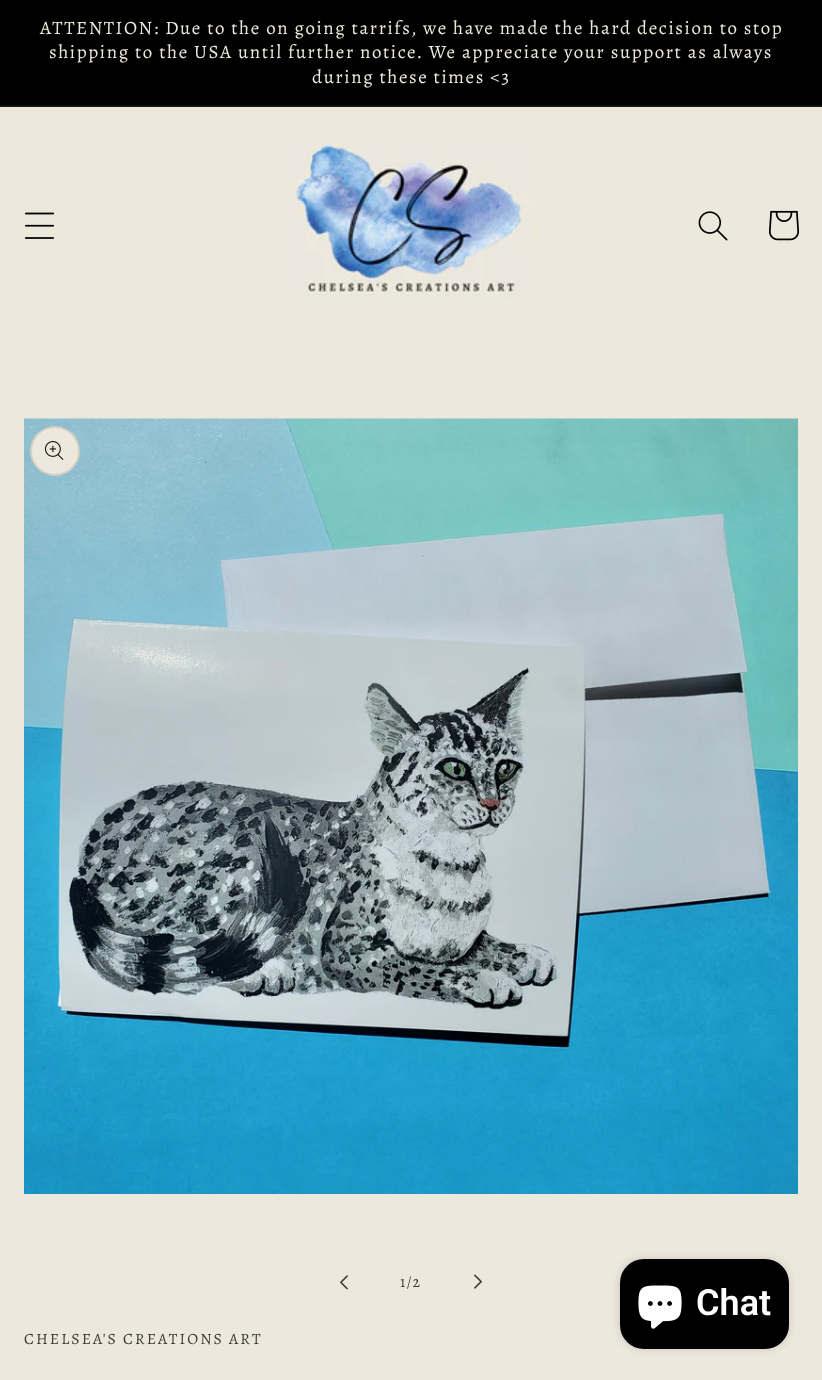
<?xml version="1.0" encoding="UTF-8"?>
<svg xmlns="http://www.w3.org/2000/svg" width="822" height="1380">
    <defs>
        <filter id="blur1" x="-50%" y="-200%" width="200%" height="500%"><feGaussianBlur stdDeviation="4"/></filter>
    </defs>
    <rect width="100%" height="100%" fill="#EDE8DC"/>
    <rect x="0" y="0" width="822" height="105" fill="#000000"/>
    <rect x="0" y="105" width="822" height="2" fill="#131312"/>
    <text x="40" y="34" font-family="Alegreya" font-size="18.9" letter-spacing="1.58" fill="#EDE8DC">ATTENTION: Due to the on going tarrifs, we have made the hard decision to stop</text>
    <text x="49" y="58" font-family="Alegreya" font-size="18.9" letter-spacing="1.58" fill="#EDE8DC">shipping to the USA until further notice. We appreciate your support as always</text>
    <text x="312" y="83" font-family="Alegreya" font-size="18.9" letter-spacing="1.58" fill="#EDE8DC">during these times &lt;3</text>
    <image x="24" y="212" width="31" height="27" href="img_01.png"/>
    <image x="289" y="144" width="242" height="154" href="img_02.png"/>
    <image x="698" y="211" width="30" height="30" href="img_03.png"/>
    <image x="769" y="210" width="30" height="31" href="img_04.png"/>
    <image x="24" y="418" width="774" height="776" href="img_05.png"/>
    <circle cx="55" cy="451" r="25" fill="#EDE8DC"/>
    <circle cx="55" cy="451" r="24" fill="none" stroke="#000000" stroke-opacity="0.1" stroke-width="2"/>
    <image x="45" y="441" width="19" height="19" href="img_06.png"/>
    <image x="340" y="1275" width="8" height="15" href="img_07.png"/>
    <text x="400" y="1287" font-family="Alegreya" font-size="15.75" letter-spacing="1" fill="#3B3A37">1/2</text>
    <image x="474" y="1274" width="8" height="15" href="img_08.png"/>
    <text x="24" y="1344" font-family="Alegreya" font-size="15.75" letter-spacing="2.05" fill="#3B3A37">CHELSEA'S CREATIONS ART</text>
    <rect x="620" y="1259" width="169" height="90" rx="24" fill="#000000" fill-opacity="0.15" filter="url(#blur1)"/>
    <rect x="620" y="1259" width="169" height="90" rx="24" fill="#000000"/>
    <image x="638" y="1285" width="44" height="44" href="img_09.png"/>
    <text x="696" y="1315" font-family="Roboto" font-size="36" font-weight="600" fill="#FFFFFF">Chat</text>
</svg>
